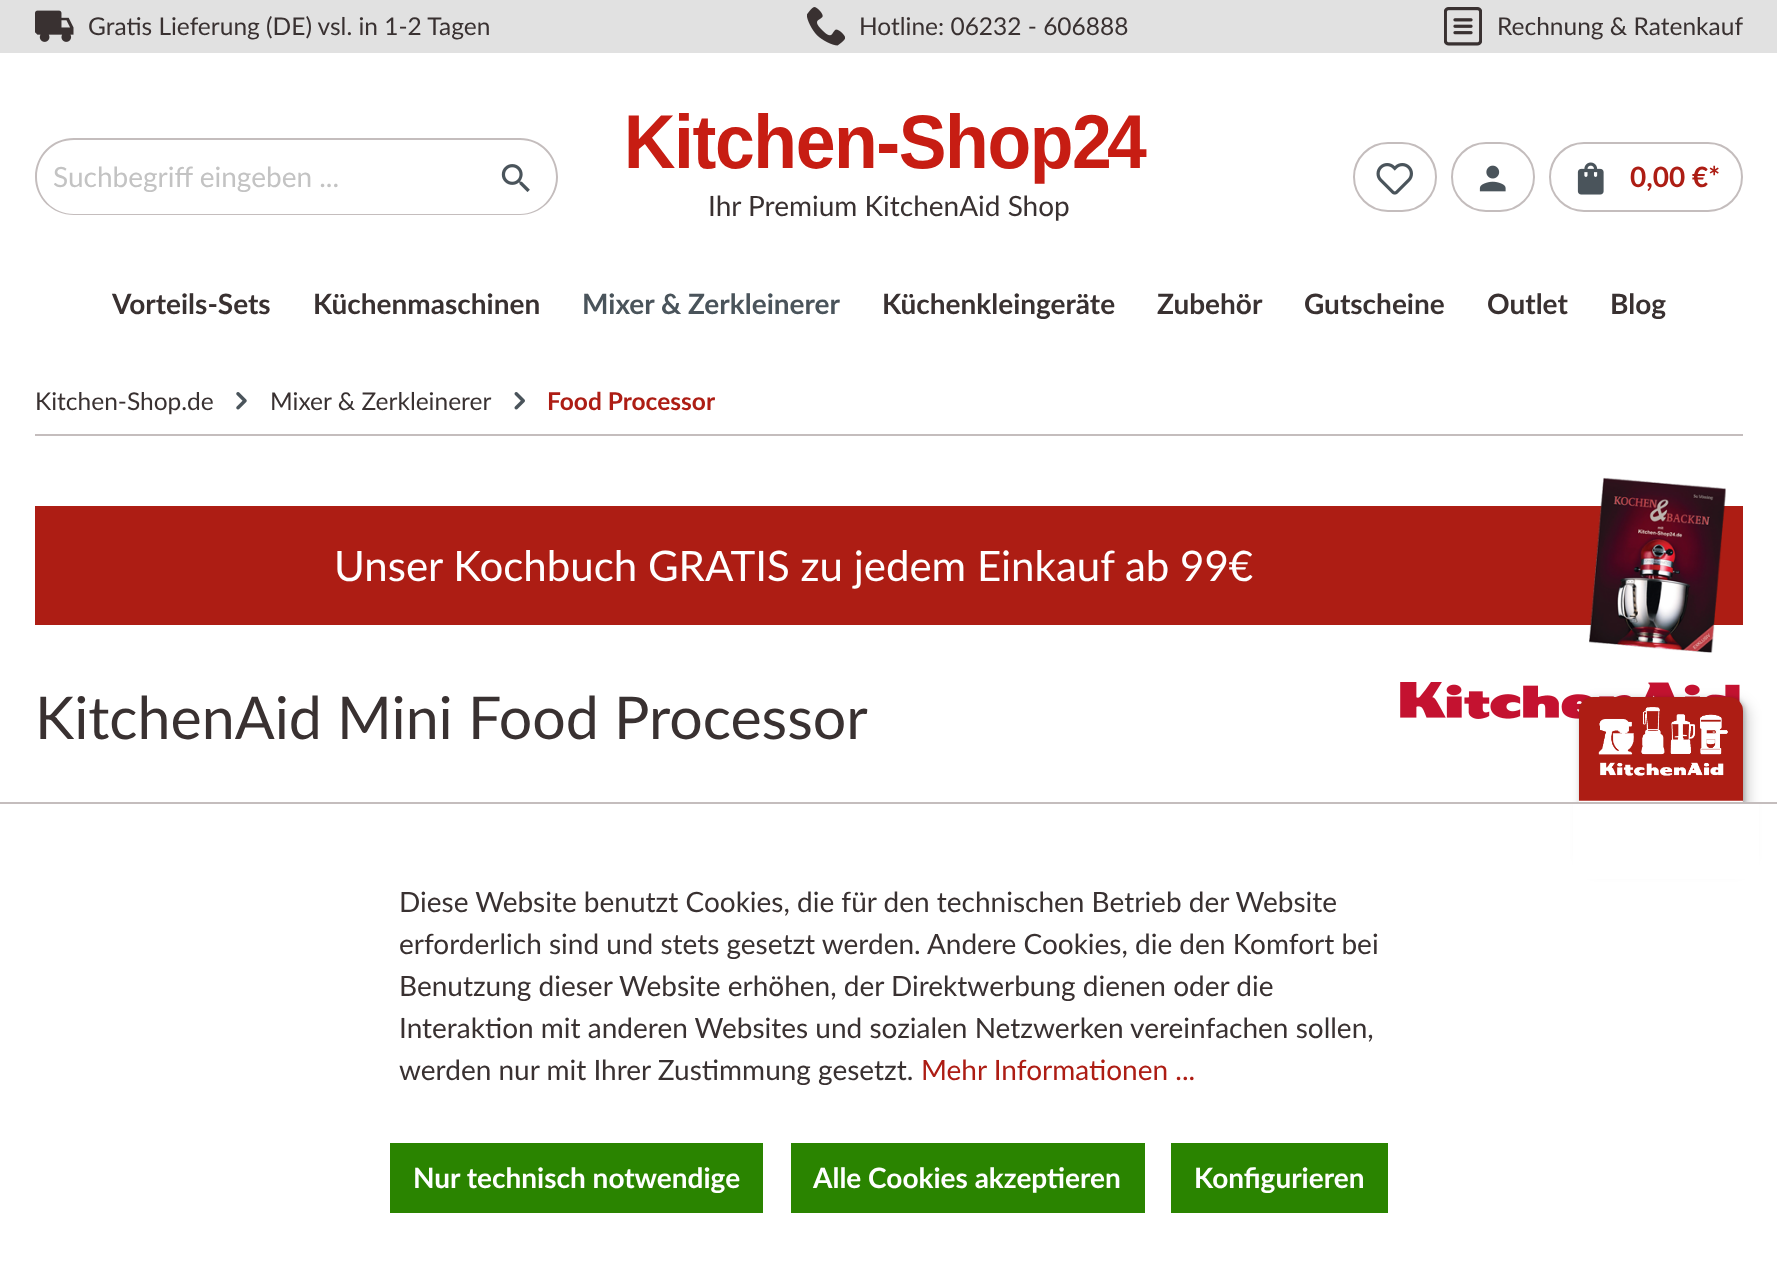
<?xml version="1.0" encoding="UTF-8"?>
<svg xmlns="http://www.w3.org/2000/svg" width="1777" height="1282">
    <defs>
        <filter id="blur1" x="-50%" y="-200%" width="200%" height="500%"><feGaussianBlur stdDeviation="7"/></filter>
        <filter id="blur2" x="-50%" y="-200%" width="200%" height="500%"><feGaussianBlur stdDeviation="2"/></filter>
    </defs>
    <rect width="100%" height="100%" fill="#FFFFFF"/>
    <rect x="0" y="0" width="1777" height="53" fill="#E1E1E1"/>
    <image x="35" y="10" width="39" height="32" href="img_01.png"/>
    <text x="88" y="35" font-family="Lato" font-size="24.5" fill="#393131">Gratis Lieferung (DE) vsl. in 1-2 Tagen</text>
    <image x="807" y="7" width="38" height="39" href="img_02.png"/>
    <text x="859" y="35" font-family="Lato" font-size="24.5" fill="#393131">Hotline: 06232 - 606888</text>
    <image x="1444" y="7" width="38" height="39" href="img_03.png"/>
    <text x="1497" y="35" font-family="Lato" font-size="24.5" fill="#393131">Rechnung &amp; Ratenkauf</text>
    <path d="M 74 138 H 478 V 215 H 74 C 52 215 35 198 35 177 C 35 155 52 138 74 138 Z M 74 140 H 478 V 214 H 74 C 53 214 37 197 37 177 C 37 156 53 140 74 140 Z" fill="#C4BDBD" fill-rule="evenodd"/>
    <text x="53" y="187" font-family="Lato" font-size="28" fill="#C3C3C3">Suchbegriff eingeben ...</text>
    <path d="M 476 138 H 519.5 C 541 138 558 155 558 176.5 C 558 198 541 215 519.5 215 H 476 Z" fill="#FFFFFF"/>
    <path d="M 476 138 H 520 C 541 138 558 155 558 177 C 558 198 541 215 520 215 H 476 Z M 476 140 H 520 C 540 140 556 156 556 177 C 556 197 540 214 520 214 H 476 Z" fill="#C4BDBD" fill-rule="evenodd"/>
    <image x="501" y="164" width="29" height="28" href="img_04.png"/>
    <rect x="1354" y="143" width="82" height="68" rx="34" fill="none" stroke="#C4BDBD" stroke-width="2"/>
    <image x="1376" y="163" width="37" height="32" href="img_05.png"/>
    <rect x="1452" y="143" width="82" height="68" rx="34" fill="none" stroke="#C4BDBD" stroke-width="2"/>
    <image x="1479" y="165" width="27" height="27" href="img_06.png"/>
    <rect x="1550" y="143" width="192" height="68" rx="34" fill="none" stroke="#C4BDBD" stroke-width="2"/>
    <image x="1577" y="162" width="27" height="33" href="img_07.png"/>
    <text x="1630" y="187" font-family="Lato" font-size="28" font-weight="700" fill="#AD1D14">0,00 €*</text>
    <image x="628" y="113" width="519" height="71" href="img_08.png"/>
    <text x="708" y="216" font-family="Lato" font-size="28" fill="#393131">Ihr Premium KitchenAid Shop</text>
    <text x="112" y="314" font-family="Lato" font-size="28" font-weight="700" fill="#393131">Vorteils-Sets</text>
    <text x="313" y="314" font-family="Lato" font-size="28" font-weight="700" fill="#393131">Küchenmaschinen</text>
    <text x="582" y="314" font-family="Lato" font-size="28" font-weight="700" fill="#4A545B">Mixer &amp; Zerkleinerer</text>
    <text x="882" y="314" font-family="Lato" font-size="28" font-weight="700" fill="#393131">Küchenkleingeräte</text>
    <text x="1157" y="314" font-family="Lato" font-size="28" font-weight="700" fill="#393131">Zubehör</text>
    <text x="1304" y="314" font-family="Lato" font-size="28" font-weight="700" fill="#393131">Gutscheine</text>
    <text x="1487" y="314" font-family="Lato" font-size="28" font-weight="700" fill="#393131">Outlet</text>
    <text x="1610" y="314" font-family="Lato" font-size="28" font-weight="700" fill="#393131">Blog</text>
    <rect x="35" y="434" width="1708" height="2" fill="#C4BDBD"/>
    <text x="35" y="410" font-family="Lato" font-size="24.5" fill="#393131">Kitchen-Shop.de</text>
    <image x="236" y="392" width="11" height="18" href="img_09.png"/>
    <text x="270" y="410" font-family="Lato" font-size="24.5" fill="#393131">Mixer &amp; Zerkleinerer</text>
    <image x="514" y="392" width="11" height="18" href="img_10.png"/>
    <text x="547" y="410" font-family="Lato" font-size="24.5" font-weight="700" fill="#AD1D14">Food Processor</text>
    <rect x="35" y="506" width="1708" height="119" fill="#AD1D14"/>
    <text x="334" y="581" font-family="Lato" font-size="42" fill="#FFFFFF">Unser Kochbuch GRATIS zu jedem Einkauf ab 99€</text>
    <image x="1589" y="477" width="137" height="176" href="img_11.png"/>
    <text x="35" y="739" font-family="Lato" font-size="59.1" fill="#393131">KitchenAid Mini Food Processor</text>
    <image x="1400" y="682" width="340" height="37" href="img_12.png"/>
    <rect x="1584" y="702" width="164" height="166" rx="14" fill="#000000" fill-opacity="0.2" filter="url(#blur1)"/>
    <rect x="1580" y="698" width="165" height="167" rx="14" fill="#000000" fill-opacity="0.2" filter="url(#blur2)"/>
    <rect x="1579" y="697" width="164" height="166" rx="14" fill="#AD1D14"/>
    <image x="1578" y="707" width="165" height="95" href="img_13.png"/>
    <rect x="1573" y="804" width="186" height="75" fill="#FFFFFF"/>
    <rect x="0" y="802" width="1777" height="2" fill="#C4BDBD"/>
    <text font-family="Lato" font-size="28" fill="#393131">
        <tspan x="399" y="912">Diese Website benutzt Cookies, die für den technischen Betrieb der Website</tspan>
        <tspan x="399" y="954">erforderlich sind und stets gesetzt werden. Andere Cookies, die den Komfort bei</tspan>
        <tspan x="399" y="996">Benutzung dieser Website erhöhen, der Direktwerbung dienen oder die</tspan>
        <tspan x="399" y="1038">Interaktion mit anderen Websites und sozialen Netzwerken vereinfachen sollen,</tspan>
        <tspan x="399" y="1080">werden nur mit Ihrer Zustimmung gesetzt.</tspan>
    </text>
    <text x="921" y="1080" font-family="Lato" font-size="28" fill="#AD1D14">Mehr Informationen ...</text>
    <rect x="390" y="1143" width="373" height="70" fill="#2A8400"/>
    <text x="413" y="1188" font-family="Lato" font-size="28" font-weight="700" fill="#FFFFFF">Nur technisch notwendige</text>
    <rect x="791" y="1143" width="354" height="70" fill="#2A8400"/>
    <text x="813" y="1188" font-family="Lato" font-size="28" font-weight="700" fill="#FFFFFF">Alle Cookies akzeptieren</text>
    <rect x="1171" y="1143" width="217" height="70" fill="#2A8400"/>
    <text x="1194" y="1188" font-family="Lato" font-size="28" font-weight="700" fill="#FFFFFF">Konfigurieren</text>
</svg>
